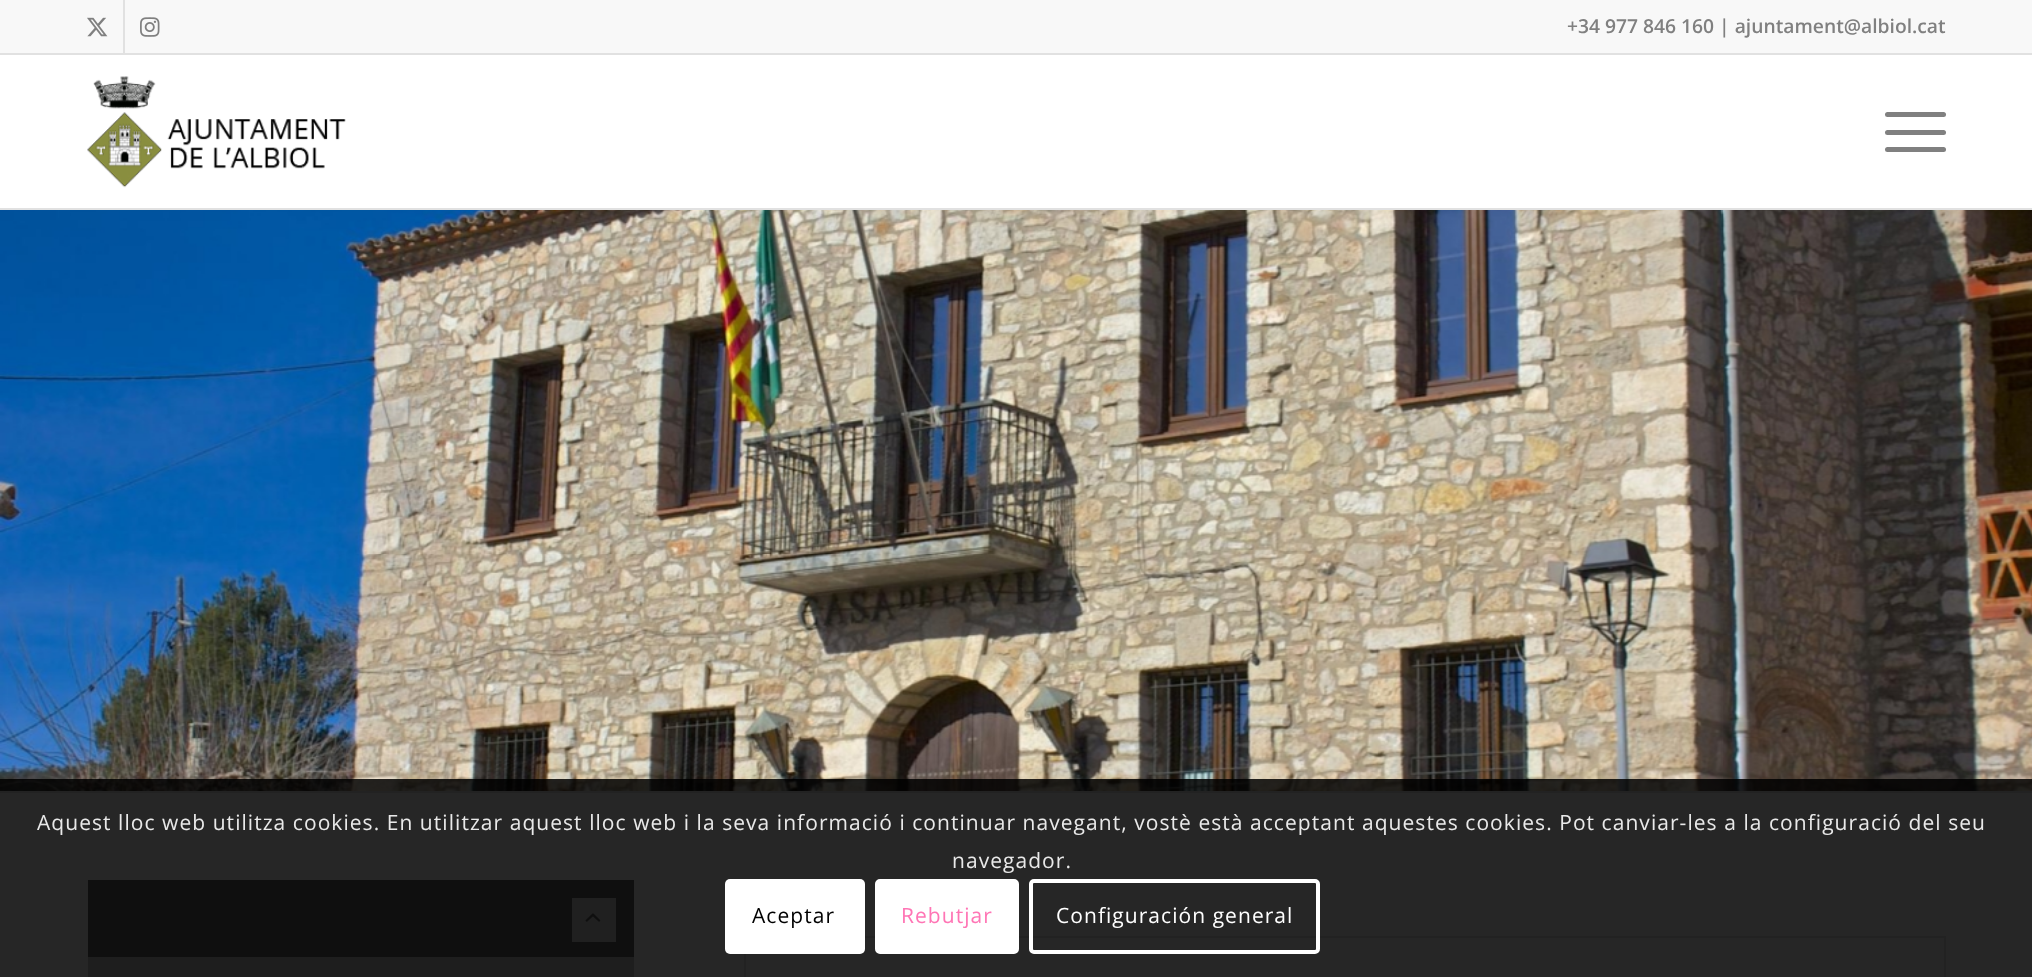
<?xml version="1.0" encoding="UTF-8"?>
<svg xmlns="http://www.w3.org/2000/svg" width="2032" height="977">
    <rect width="100%" height="100%" fill="#FFFFFF"/>
    <rect x="0" y="0" width="2032" height="53" fill="#F8F8F8"/>
    <rect x="0" y="53" width="2032" height="2" fill="#E1E1E1"/>
    <rect x="123" y="0" width="2" height="53" fill="#E1E1E1"/>
    <image x="87" y="17" width="21" height="20" href="img_01.png"/>
    <image x="140" y="17" width="20" height="20" href="img_02.png"/>
    <text x="1567" y="33" font-family="Open Sans" font-size="19.25" font-weight="600" fill="#808080">+34 977 846 160 | ajuntament@albiol.cat</text>
    <rect x="0" y="208" width="2032" height="2" fill="#E1E1E1"/>
    <image x="87" y="76" width="259" height="112" href="img_03.png"/>
    <rect x="1885" y="130" width="61" height="5" rx="2.5" fill="#808080"/>
    <rect x="1885" y="112" width="61" height="5" rx="2.5" fill="#808080"/>
    <rect x="1885" y="147" width="61" height="5" rx="2.5" fill="#808080"/>
    <image x="0" y="210" width="2032" height="581" href="img_04.png"/>
    <rect x="0" y="791" width="2032" height="2" fill="#E1E1E1"/>
    <rect x="88" y="880" width="546" height="77" fill="#696969"/>
    <rect x="572" y="898" width="44" height="44" fill="#D4D4D4"/>
    <image x="585" y="913" width="16" height="9" href="img_05.png"/>
    <rect x="88" y="957" width="546" height="20" fill="#C9C9C9"/>
    <rect x="746" y="938" width="1198" height="39" fill="#FCFCFC"/>
    <rect x="865" y="936" width="1081" height="2" fill="#E1E1E1"/>
    <rect x="1944" y="936" width="2" height="41" fill="#E1E1E1"/>
    <rect x="744" y="954" width="2" height="23" fill="#E1E1E1"/>
    <rect x="0" y="779" width="2032" height="198" fill="#000000" fill-opacity="0.85"/>
    <text x="37" y="830" font-family="Open Sans" font-size="21" letter-spacing="1.05" fill="#E9E9E9">Aquest lloc web utilitza cookies. En utilitzar aquest lloc web i la seva informació i continuar navegant, vostè està acceptant aquestes cookies. Pot canviar-les a la configuració del seu</text>
    <text x="952" y="868" font-family="Open Sans" font-size="21" letter-spacing="1.05" fill="#E9E9E9">navegador.</text>
    <rect x="725" y="879" width="140" height="75" rx="5" fill="#FFFFFF"/>
    <text x="752" y="923" font-family="Open Sans" font-size="21" letter-spacing="1.05" fill="#000000">Aceptar</text>
    <rect x="877" y="881" width="140" height="71" rx="3" fill="#FFFFFF" stroke="#FFFFFF" stroke-width="4"/>
    <text x="901" y="923" font-family="Open Sans" font-size="21" letter-spacing="1.05" fill="#FF75B5">Rebutjar</text>
    <rect x="1031" y="881" width="287" height="71" rx="3" fill="none" stroke="#FFFFFF" stroke-width="4"/>
    <text x="1056" y="923" font-family="Open Sans" font-size="21" letter-spacing="1.05" fill="#FFFFFF">Configuración general</text>
</svg>
